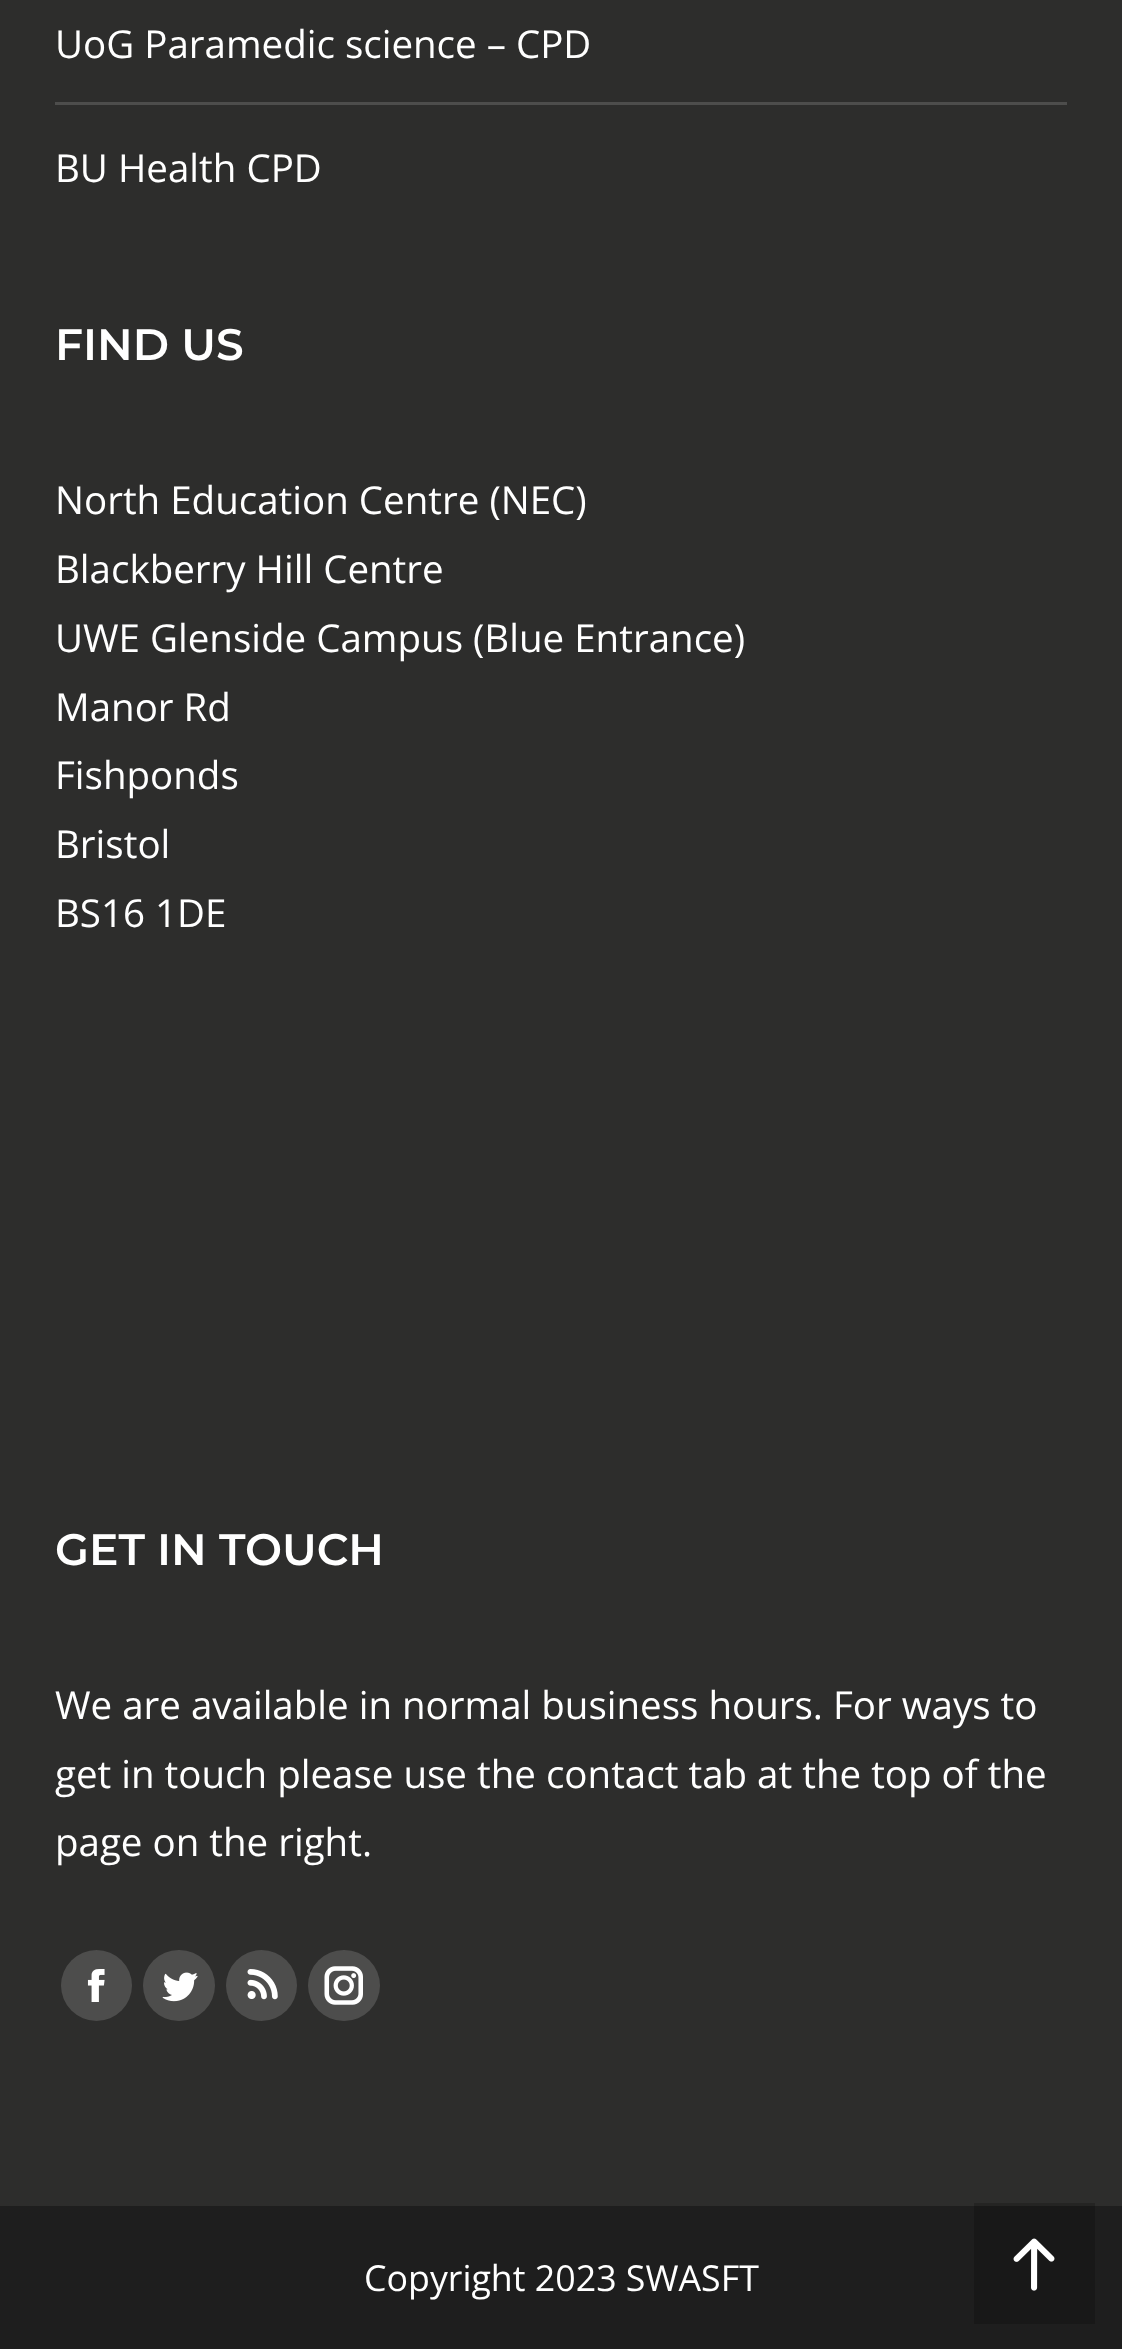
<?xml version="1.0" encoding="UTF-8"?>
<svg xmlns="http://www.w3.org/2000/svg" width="1122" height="2349">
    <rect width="100%" height="100%" fill="#2D2D2C"/>
    <rect x="974" y="2203" width="121" height="3" fill="#242423"/>
    <text x="55" y="58" font-family="Open Sans" font-size="38.5" fill="#FFFFFF">UoG Paramedic science – CPD</text>
    <rect x="55" y="102" width="1012" height="3" fill="#4D4D4C"/>
    <text x="55" y="182" font-family="Open Sans" font-size="38.5" fill="#FFFFFF">BU Health CPD</text>
    <text x="55" y="360" font-family="Montserrat" font-size="44" font-weight="600" fill="#FFFFFF">FIND US</text>
    <text font-family="Open Sans" font-size="38.5" fill="#FFFFFF">
        <tspan x="55" y="514">North Education Centre (NEC)</tspan>
        <tspan x="55" y="583">Blackberry Hill Centre</tspan>
        <tspan x="55" y="652">UWE Glenside Campus (Blue Entrance)</tspan>
        <tspan x="55" y="721">Manor Rd</tspan>
        <tspan x="55" y="789">Fishponds</tspan>
        <tspan x="55" y="858">Bristol</tspan>
        <tspan x="55" y="927">BS16 1DE</tspan>
    </text>
    <text x="55" y="1565" font-family="Montserrat" font-size="44" font-weight="600" fill="#FFFFFF">GET IN TOUCH</text>
    <text font-family="Open Sans" font-size="38.5" fill="#FFFFFF">
        <tspan x="55" y="1719">We are available in normal business hours. For ways to</tspan>
        <tspan x="55" y="1788">get in touch please use the contact tab at the top of the</tspan>
        <tspan x="55" y="1856">page on the right.</tspan>
    </text>
    <circle cx="96.5" cy="1985.5" r="35.5" fill="#4D4D4C"/>
    <image x="87" y="1969" width="18" height="33" href="img_01.png"/>
    <rect x="143" y="1950" width="72" height="71" rx="35.5" fill="#4D4D4C"/>
    <image x="162" y="1972" width="36" height="30" href="img_02.png"/>
    <circle cx="261.5" cy="1985.5" r="35.5" fill="#4D4D4C"/>
    <image x="247" y="1969" width="31" height="31" href="img_03.png"/>
    <rect x="308" y="1950" width="72" height="71" rx="35.5" fill="#4D4D4C"/>
    <image x="324" y="1966" width="39" height="39" href="img_04.png"/>
    <rect x="0" y="2206" width="1122" height="143" fill="#1E1E1E"/>
    <rect x="974" y="2206" width="121" height="118" fill="#181818"/>
    <text x="364" y="2291" font-family="Open Sans" font-size="35.75" fill="#FFFFFF">Copyright 2023 SWASFT</text>
    <image x="1013" y="2238" width="42" height="53" href="img_05.png"/>
</svg>
